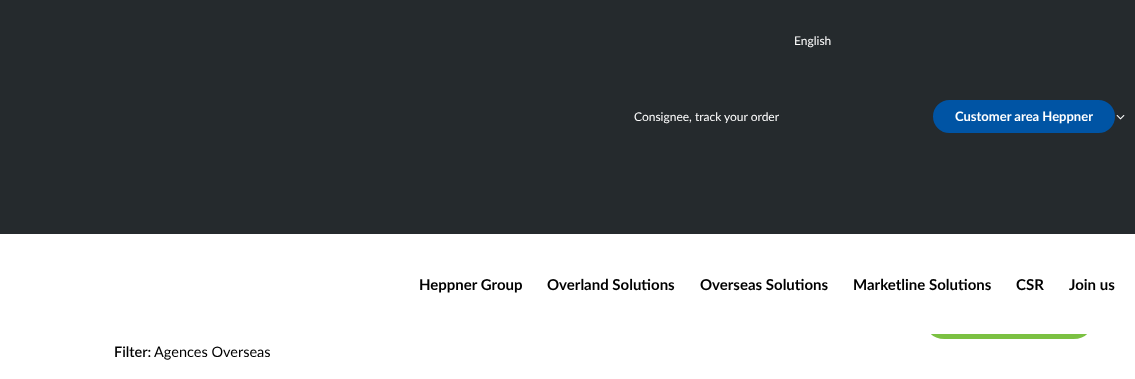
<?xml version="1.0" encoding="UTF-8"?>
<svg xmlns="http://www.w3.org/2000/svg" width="1135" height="379">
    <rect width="100%" height="100%" fill="#FFFFFF"/>
    <rect x="924" y="297" width="170" height="41" rx="20.5" fill="#7BC142" stroke="#7BC142" stroke-width="2"/>
    <rect x="923" y="296" width="172" height="38" fill="#FFFFFF"/>
    <rect x="0" y="0" width="1135" height="234" fill="#252A2D"/>
    <text x="794" y="45" font-family="Lato" font-size="12" fill="#FFFFFF">English</text>
    <image x="1116" y="115" width="9" height="5" href="img_01.png"/>
    <text x="634" y="121" font-family="Lato" font-size="12" fill="#FFFFFF">Consignee, track your order</text>
    <rect x="934" y="101" width="180" height="31" rx="15.5" fill="#0054A4" stroke="#0054A4" stroke-width="2"/>
    <text x="955" y="121" font-family="Lato" font-size="13" font-weight="700" fill="#FFFFFF">Customer area Heppner</text>
    <text x="419" y="290" font-family="Lato" font-size="15" font-weight="700" fill="#000000">Heppner Group</text>
    <text x="547" y="290" font-family="Lato" font-size="15" font-weight="700" fill="#000000">Overland Solutions</text>
    <text x="700" y="290" font-family="Lato" font-size="15" font-weight="700" fill="#000000">Overseas Solutions</text>
    <text x="853" y="290" font-family="Lato" font-size="15" font-weight="700" fill="#000000">Marketline Solutions</text>
    <text x="1016" y="290" font-family="Lato" font-size="15" font-weight="700" fill="#000000">CSR</text>
    <text x="1069" y="290" font-family="Lato" font-size="15" font-weight="700" fill="#000000">Join us</text>
    <text x="114" y="357" font-family="Lato" font-size="14.5" font-weight="600" fill="#000000">Filter:</text>
    <text x="154" y="357" font-family="Lato" font-size="14.5" fill="#000000">Agences Overseas</text>
</svg>
